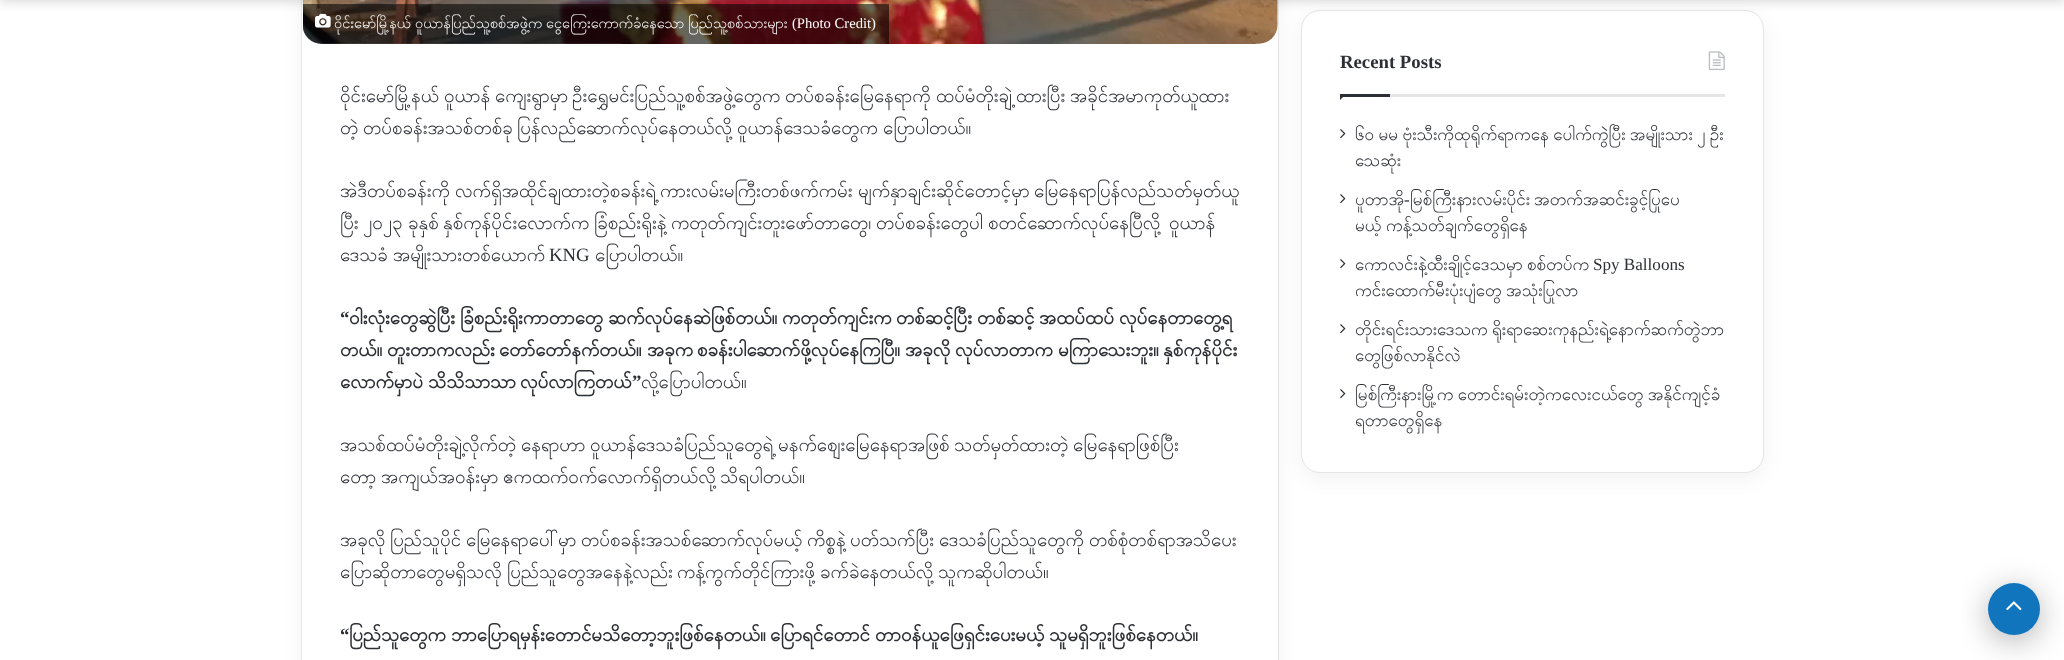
<?xml version="1.0" encoding="UTF-8"?>
<svg xmlns="http://www.w3.org/2000/svg" width="2064" height="660">
    <defs>
        <filter id="blur1" x="-50%" y="-200%" width="200%" height="500%"><feGaussianBlur stdDeviation="9.5"/></filter>
        <filter id="blur2" x="-50%" y="-200%" width="200%" height="500%"><feGaussianBlur stdDeviation="5"/></filter>
        <filter id="blur3" x="-50%" y="-200%" width="200%" height="500%"><feGaussianBlur stdDeviation="15.5"/></filter>
    </defs>
    <rect width="100%" height="100%" fill="#FFFFFF"/>
    <rect x="301" y="-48" width="978" height="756" rx="19" fill="#000000" fill-opacity="0.05" filter="url(#blur1)"/>
    <rect x="301.5" y="-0.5" width="977" height="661" fill="#FFFFFF" stroke="#E6E6E6"/>
    <image x="303" y="0" width="975" height="44" href="img_01.png"/>
    <path d="M 303 4 H 889 V 44 H 322 C 311.5 44 303 35.5 303 25 Z" fill="#000000" fill-opacity="0.6"/>
    <image x="315" y="13" width="16" height="15" href="img_02.png"/>
    <rect x="1301" y="16" width="463" height="463" rx="19" fill="#000000" fill-opacity="0.05" filter="url(#blur1)"/>
    <rect x="1301.5" y="10.5" width="462" height="462" rx="18.5" fill="#FFFFFF" stroke="#E5E5E5"/>
    <rect x="0" y="-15" width="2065" height="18" fill="#636363" fill-opacity="0.2" filter="url(#blur2)"/>
    <text x="334" y="28" font-family="Padauk" font-size="14.6" fill="#FFFFFF">ဝိုင်းမော်မြို့နယ်</text>
    <text x="415" y="28" font-family="Padauk" font-size="14.6" fill="#FFFFFF">ဝူယာန်ပြည်သူ့စစ်အဖွဲ့က</text>
    <text x="546" y="28" font-family="Padauk" font-size="14.6" fill="#FFFFFF">ငွေကြေးကောက်ခံနေသော</text>
    <text x="688" y="28" font-family="Padauk" font-size="14.6" fill="#FFFFFF">ပြည်သူ့စစ်သားများ</text>
    <text x="792" y="28" font-family="Liberation Serif" font-size="14.6" fill="#FFFFFF">(Photo Credit)</text>
    <text x="340" y="102" font-family="Padauk" font-size="18.75" fill="#2C2F34">ဝိုင်းမော်မြို့နယ်</text>
    <text x="444" y="102" word-spacing="-2" font-family="Padauk" font-size="18.75" fill="#2C2F34">ဝူယာန် ကျေးရွာမှာ</text>
    <text x="572" y="102" font-family="Padauk" font-size="18.75" fill="#2C2F34">ဦးရွှေမင်းပြည်သူ့စစ်အဖွဲ့တွေက</text>
    <text x="785" y="102" font-family="Padauk" font-size="18.75" fill="#2C2F34">တပ်စခန်းမြေနေရာကို</text>
    <text x="936" y="102" font-family="Padauk" font-size="18.75" fill="#2C2F34">ထပ်မံတိုးချဲ့</text>
    <text x="1016" y="102" font-family="Padauk" font-size="18.75" fill="#2C2F34">ထားပြီး</text>
    <text x="1070" y="102" font-family="Padauk" font-size="18.75" fill="#2C2F34">အခိုင်အမာကုတ်ယူထား</text>
    <text x="340" y="134" font-family="Padauk" font-size="18.75" fill="#2C2F34">တဲ့</text>
    <text x="363" y="134" font-family="Padauk" font-size="18.75" fill="#2C2F34">တပ်စခန်းအသစ်တစ်ခု</text>
    <text x="517" y="134" font-family="Padauk" font-size="18.75" fill="#2C2F34">ပြန်လည်ဆောက်လုပ်နေတယ်လို့</text>
    <text x="737" y="134" font-family="Padauk" font-size="18.75" fill="#2C2F34">ဝူယာန်ဒေသခံတွေက</text>
    <text x="883" y="134" font-family="Padauk" font-size="18.75" fill="#2C2F34">ပြောပါတယ်။</text>
    <text x="340" y="197" font-family="Padauk" font-size="18.75" fill="#2C2F34">အဲဒီတပ်စခန်းကို</text>
    <text x="455" y="197" font-family="Padauk" font-size="18.75" fill="#2C2F34">လက်ရှိအထိုင်ချထားတဲ့စခန်းရဲ့</text>
    <text x="660" y="197" font-family="Padauk" font-size="18.75" fill="#2C2F34">ကားလမ်းမကြီးတစ်ဖက်ကမ်း</text>
    <text x="858" y="197" font-family="Padauk" font-size="18.75" fill="#2C2F34">မျက်နှာချင်းဆိုင်တောင့်မှာ</text>
    <text x="1034" y="197" font-family="Padauk" font-size="18.75" fill="#2C2F34">မြေနေရာပြန်လည်သတ်မှတ်ယူ</text>
    <text x="340" y="229" font-family="Padauk" font-size="18.75" fill="#2C2F34">ပြီး</text>
    <text x="363" y="229" font-family="Padauk" font-size="18.75" fill="#2C2F34">၂၀၂၃</text>
    <text x="408" y="229" font-family="Padauk" font-size="18.75" fill="#2C2F34">ခုနှစ်</text>
    <text x="443" y="229" font-family="Padauk" font-size="18.75" fill="#2C2F34">နှစ်ကုန်ပိုင်းလောက်က</text>
    <text x="594" y="229" font-family="Padauk" font-size="18.75" fill="#2C2F34">ခြံစည်းရိုးနဲ့</text>
    <text x="671" y="229" font-family="Padauk" font-size="18.75" fill="#2C2F34">ကတုတ်ကျင်းတူးဖော်တာတွေ၊</text>
    <text x="876" y="229" font-family="Padauk" font-size="18.75" fill="#2C2F34">တပ်စခန်းတွေပါ</text>
    <text x="988" y="229" font-family="Padauk" font-size="18.75" fill="#2C2F34">စတင်ဆောက်လုပ်နေပြီလို့</text>
    <text x="1169" y="229" font-family="Padauk" font-size="18.75" fill="#2C2F34">ဝူယာန်</text>
    <text x="340" y="261" font-family="Padauk" font-size="18.75" fill="#2C2F34">ဒေသခံ</text>
    <text x="393" y="261" font-family="Padauk" font-size="18.75" fill="#2C2F34">အမျိုးသားတစ်ယောက်</text>
    <text x="549" y="261" font-family="Liberation Serif" font-size="18.75" fill="#2C2F34">KNG</text>
    <text x="595" y="261" font-family="Padauk" font-size="18.75" fill="#2C2F34">ပြောပါတယ်။</text>
    <text x="340" y="324" font-family="Liberation Serif" font-size="18.75" font-weight="700" fill="#2C2F34">“</text>
    <text x="349" y="324" font-family="Padauk" font-size="18.75" font-weight="700" fill="#2C2F34">ဝါးလုံးတွေဆွဲပြီး</text>
    <text x="460" y="324" font-family="Padauk" font-size="18.75" font-weight="700" fill="#2C2F34">ခြံစည်းရိုးကာတာတွေ</text>
    <text x="608" y="324" font-family="Padauk" font-size="18.75" font-weight="700" fill="#2C2F34">ဆက်လုပ်နေဆဲဖြစ်တယ်။</text>
    <text x="782" y="324" font-family="Padauk" font-size="18.75" font-weight="700" fill="#2C2F34">ကတုတ်ကျင်းက</text>
    <text x="896" y="324" font-family="Padauk" font-size="18.75" font-weight="700" fill="#2C2F34">တစ်ဆင့်ပြီး</text>
    <text x="977" y="324" font-family="Padauk" font-size="18.75" font-weight="700" fill="#2C2F34">တစ်ဆင့်</text>
    <text x="1039" y="324" font-family="Padauk" font-size="18.75" font-weight="700" fill="#2C2F34">အထပ်ထပ်</text>
    <text x="1119" y="324" font-family="Padauk" font-size="18.75" font-weight="700" fill="#2C2F34">လုပ်နေတာတွေ့ရ</text>
    <text x="340" y="356" font-family="Padauk" font-size="18.75" font-weight="700" fill="#2C2F34">တယ်။</text>
    <text x="387" y="356" font-family="Padauk" font-size="18.75" font-weight="700" fill="#2C2F34">တူးတာကလည်း</text>
    <text x="499" y="356" font-family="Padauk" font-size="18.75" font-weight="700" fill="#2C2F34">တော်တော်နက်တယ်။</text>
    <text x="647" y="356" font-family="Padauk" font-size="18.75" font-weight="700" fill="#2C2F34">အခုက</text>
    <text x="697" y="356" font-family="Padauk" font-size="18.75" font-weight="700" fill="#2C2F34">စခန်းပါဆောက်ဖို့လုပ်နေကြပြီ။</text>
    <text x="905" y="356" font-family="Padauk" font-size="18.75" font-weight="700" fill="#2C2F34">အခုလို</text>
    <text x="955" y="356" font-family="Padauk" font-size="18.75" font-weight="700" fill="#2C2F34">လုပ်လာတာက</text>
    <text x="1058" y="356" font-family="Padauk" font-size="18.75" font-weight="700" fill="#2C2F34">မကြာသေးဘူး။</text>
    <text x="1163" y="356" font-family="Padauk" font-size="18.75" font-weight="700" fill="#2C2F34">နှစ်ကုန်ပိုင်း</text>
    <text x="340" y="388" font-family="Padauk" font-size="18.75" font-weight="700" fill="#2C2F34">လောက်မှာပဲ</text>
    <text x="428" y="388" font-family="Padauk" font-size="18.75" font-weight="700" fill="#2C2F34">သိသိသာသာ</text>
    <text x="520" y="388" font-family="Padauk" font-size="18.75" font-weight="700" fill="#2C2F34">လုပ်လာကြတယ်</text>
    <text x="632" y="388" font-family="Liberation Serif" font-size="18.75" font-weight="700" fill="#2C2F34">”</text>
    <text x="641" y="388" font-family="Padauk" font-size="18.75" fill="#2C2F34">လို့ပြောပါတယ်။</text>
    <text x="340" y="451" font-family="Padauk" font-size="18.75" fill="#2C2F34">အသစ်ထပ်မံတိုးချဲ့လိုက်တဲ့</text>
    <text x="521" y="451" font-family="Padauk" font-size="18.75" fill="#2C2F34">နေရာဟာ</text>
    <text x="590" y="451" font-family="Padauk" font-size="18.75" fill="#2C2F34">ဝူယာန်ဒေသခံပြည်သူတွေရဲ့</text>
    <text x="778" y="451" font-family="Padauk" font-size="18.75" fill="#2C2F34">မနက်စျေးမြေနေရာအဖြစ်</text>
    <text x="954" y="451" font-family="Padauk" font-size="18.75" fill="#2C2F34">သတ်မှတ်ထားတဲ့</text>
    <text x="1073" y="451" font-family="Padauk" font-size="18.75" fill="#2C2F34">မြေနေရာဖြစ်ပြီး</text>
    <text x="340" y="483" font-family="Padauk" font-size="18.75" fill="#2C2F34">တော့</text>
    <text x="381" y="483" font-family="Padauk" font-size="18.75" fill="#2C2F34">အကျယ်အဝန်းမှာ</text>
    <text x="503" y="483" font-family="Padauk" font-size="18.75" fill="#2C2F34">ဧကထက်ဝက်လောက်ရှိတယ်လို့</text>
    <text x="720" y="483" font-family="Padauk" font-size="18.75" fill="#2C2F34">သိရပါတယ်။</text>
    <text x="340" y="546" font-family="Padauk" font-size="18.75" fill="#2C2F34">အခုလို</text>
    <text x="390" y="546" font-family="Padauk" font-size="18.75" fill="#2C2F34">ပြည်သူပိုင်</text>
    <text x="466" y="546" font-family="Padauk" font-size="18.75" fill="#2C2F34">မြေနေရာပေါ်မှာ</text>
    <text x="581" y="546" font-family="Padauk" font-size="18.75" fill="#2C2F34">တပ်စခန်းအသစ်ဆောက်လုပ်မယ့်</text>
    <text x="807" y="546" font-family="Padauk" font-size="18.75" fill="#2C2F34">ကိစ္စနဲ့</text>
    <text x="850" y="546" font-family="Padauk" font-size="18.75" fill="#2C2F34">ပတ်သက်ပြီး</text>
    <text x="939" y="546" font-family="Padauk" font-size="18.75" fill="#2C2F34">ဒေသခံပြည်သူတွေကို</text>
    <text x="1089" y="546" font-family="Padauk" font-size="18.75" fill="#2C2F34">တစ်စုံတစ်ရာအသိပေး</text>
    <text x="340" y="578" font-family="Padauk" font-size="18.75" fill="#2C2F34">ပြောဆိုတာတွေမရှိသလို</text>
    <text x="507" y="578" font-family="Padauk" font-size="18.75" fill="#2C2F34">ပြည်သူတွေအနေနဲ့လည်း</text>
    <text x="677" y="578" font-family="Padauk" font-size="18.75" fill="#2C2F34">ကန့်ကွက်တိုင်ကြားဖို့</text>
    <text x="820" y="578" font-family="Padauk" font-size="18.75" fill="#2C2F34">ခက်ခဲနေတယ်လို့</text>
    <text x="938" y="578" font-family="Padauk" font-size="18.75" fill="#2C2F34">သူကဆိုပါတယ်။</text>
    <text x="340" y="641" font-family="Liberation Serif" font-size="18.75" font-weight="700" fill="#2C2F34">“</text>
    <text x="349" y="641" font-family="Padauk" font-size="18.75" font-weight="700" fill="#2C2F34">ပြည်သူတွေက</text>
    <text x="451" y="641" font-family="Padauk" font-size="18.75" font-weight="700" fill="#2C2F34">ဘာပြောရမှန်းတောင်မသိတော့ဘူးဖြစ်နေတယ်။</text>
    <text x="770" y="641" font-family="Padauk" font-size="18.75" font-weight="700" fill="#2C2F34">ပြောရင်တောင်</text>
    <text x="875" y="641" font-family="Padauk" font-size="18.75" font-weight="700" fill="#2C2F34">တာဝန်ယူဖြေရှင်းပေးမယ့်</text>
    <text x="1049" y="641" font-family="Padauk" font-size="18.75" font-weight="700" fill="#2C2F34">သူမရှိဘူးဖြစ်နေတယ်။</text>
    <rect x="1390" y="94" width="335" height="3" fill="#E6E6E6"/>
    <text x="1340" y="68" font-family="Liberation Serif" font-size="18.75" font-weight="700" fill="#2C2F34">Recent Posts</text>
    <image x="1708" y="51" width="17" height="20" href="img_03.png"/>
    <path d="M 1340 94 H 1346 L 1340 100 Z" fill="#2C2F34"/>
    <rect x="1340" y="94" width="50" height="3" fill="#2C2F34"/>
    <image x="1340" y="129" width="6" height="10" href="img_04.png"/>
    <text font-family="Padauk" font-size="17.1" fill="#2C2F34">
        <tspan x="1355" y="140" word-spacing="-2">၆၀ မမ ဗုံးသီးကိုထုရိုက်ရာကနေ ပေါက်ကွဲပြီး အမျိုးသား ၂ ဦး</tspan>
        <tspan x="1355" y="166">သေဆုံး</tspan>
    </text>
    <image x="1340" y="194" width="6" height="10" href="img_04.png"/>
    <text x="1355" y="205" font-family="Padauk" font-size="17.1" fill="#2C2F34">ပူတာအို</text>
    <text x="1404" y="205" font-family="Liberation Serif" font-size="17.1" fill="#2C2F34">-</text>
    <text x="1410" y="205" font-family="Padauk" font-size="17.1" fill="#2C2F34">မြစ်ကြီးနားလမ်းပိုင်း</text>
    <text x="1534" y="205" font-family="Padauk" font-size="17.1" fill="#2C2F34">အတက်အဆင်းခွင့်ပြုပေ</text>
    <text x="1355" y="231" font-family="Padauk" font-size="17.1" fill="#2C2F34">မယ့်</text>
    <text x="1386" y="231" font-family="Padauk" font-size="17.1" fill="#2C2F34">ကန့်သတ်ချက်တွေရှိနေ</text>
    <image x="1340" y="259" width="6" height="10" href="img_04.png"/>
    <text x="1355" y="270" font-family="Padauk" font-size="17.1" fill="#2C2F34">ကောလင်းနဲ့ထီးချိုင့်ဒေသမှာ</text>
    <text x="1527" y="270" font-family="Padauk" font-size="17.1" fill="#2C2F34">စစ်တပ်က</text>
    <text x="1593" y="270" font-family="Liberation Serif" font-size="17.1" fill="#2C2F34">Spy Balloons</text>
    <text x="1355" y="296" word-spacing="-2" font-family="Padauk" font-size="17.1" fill="#2C2F34">ကင်းထောက်မီးပုံးပျံတွေ အသုံးပြုလာ</text>
    <image x="1340" y="324" width="6" height="10" href="img_04.png"/>
    <text x="1355" y="335" font-family="Padauk" font-size="17.1" fill="#2C2F34">တိုင်းရင်းသားဒေသက</text>
    <text x="1492" y="335" font-family="Padauk" font-size="17.1" fill="#2C2F34">ရိုးရာဆေးကုနည်းရဲ့နောက်ဆက်တွဲဘာ</text>
    <text x="1355" y="361" font-family="Padauk" font-size="17.1" fill="#2C2F34">တွေဖြစ်လာနိုင်လဲ</text>
    <image x="1340" y="389" width="6" height="10" href="img_04.png"/>
    <text font-family="Padauk" font-size="17.1" fill="#2C2F34">
        <tspan x="1355" y="400" word-spacing="-2">မြစ်ကြီးနားမြို့က တောင်းရမ်းတဲ့ကလေးငယ်တွေ အနိုင်ကျင့်ခံ</tspan>
        <tspan x="1355" y="426">ရတာတွေရှိနေ</tspan>
    </text>
    <rect x="1988" y="589" width="52" height="52" rx="26" fill="#000000" fill-opacity="0.3" filter="url(#blur3)"/>
    <circle cx="2014" cy="609" r="26" fill="#1075BD"/>
    <image x="2006" y="601" width="16" height="10" href="img_05.png"/>
</svg>
